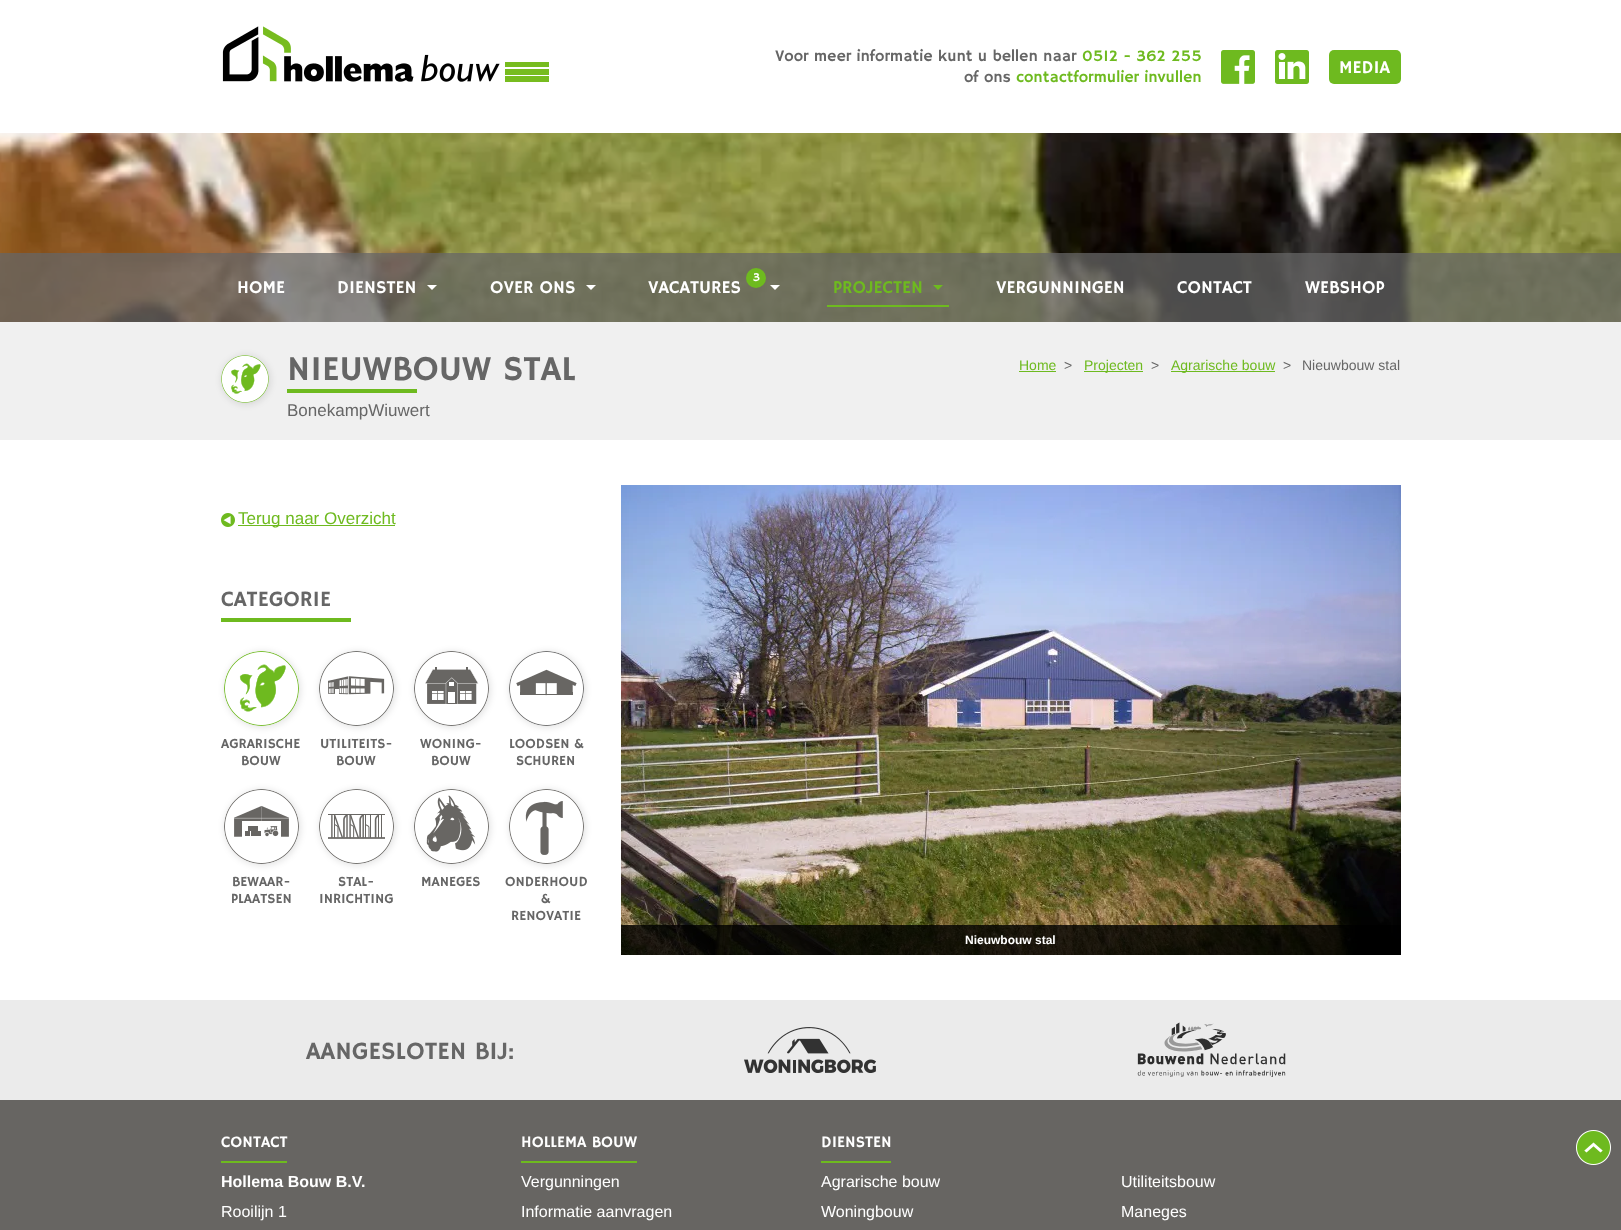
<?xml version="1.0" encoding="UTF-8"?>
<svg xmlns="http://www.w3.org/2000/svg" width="1621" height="1230">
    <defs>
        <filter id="blur1" x="-50%" y="-200%" width="200%" height="500%"><feGaussianBlur stdDeviation="3"/></filter>
    </defs>
    <rect width="100%" height="100%" fill="#FFFFFF"/>
    <image x="222" y="26" width="327" height="56" href="img_01.png"/>
    <text x="775" y="61" font-family="Hammersmith One" font-size="16" fill="#666666">Voor meer informatie kunt u bellen naar</text>
    <text x="1082" y="61" font-family="Hammersmith One" font-size="16" fill="#6EBA1F">0512 - 362 255</text>
    <text x="964" y="82" font-family="Hammersmith One" font-size="16" fill="#666666">of ons</text>
    <text x="1016" y="82" font-family="Hammersmith One" font-size="16" fill="#6EBA1F">contactformulier invullen</text>
    <image x="1221" y="50" width="34" height="34" href="img_02.png"/>
    <image x="1275" y="50" width="34" height="34" href="img_03.png"/>
    <rect x="1329" y="50" width="72" height="34" rx="5" fill="#6EBA1F"/>
    <text x="1339" y="73" font-family="Hammersmith One" font-size="18" fill="#FFFFFF">MEDIA</text>
    <image x="0" y="133" width="1621" height="189" href="img_04.png"/>
    <rect x="0" y="253" width="1621" height="69" fill="#666666" fill-opacity="0.75"/>
    <text x="237" y="293" font-family="Hammersmith One" font-size="18" fill="#FFFFFF">HOME</text>
    <text x="337" y="293" font-family="Hammersmith One" font-size="18" fill="#FFFFFF">DIENSTEN</text>
    <path d="M 427 285 H 437 L 432 290 Z" fill="#FFFFFF"/>
    <text x="490" y="293" font-family="Hammersmith One" font-size="18" fill="#FFFFFF">OVER ONS</text>
    <path d="M 586 285 H 596 L 591 290 Z" fill="#FFFFFF"/>
    <circle cx="756" cy="278" r="10" fill="#6EBA1F"/>
    <text x="753" y="281" font-family="Hammersmith One" font-size="12" fill="#FFFFFF">3</text>
    <text x="648" y="293" font-family="Hammersmith One" font-size="18" fill="#FFFFFF">VACATURES</text>
    <path d="M 770 285 H 780 L 775 290 Z" fill="#FFFFFF"/>
    <rect x="827" y="305" width="122" height="2" fill="#6EBA1F"/>
    <text x="833" y="293" font-family="Hammersmith One" font-size="18" fill="#6EBA1F">PROJECTEN</text>
    <path d="M 933 285 H 943 L 938 290 Z" fill="#6EBA1F"/>
    <text x="996" y="293" font-family="Hammersmith One" font-size="18" fill="#FFFFFF">VERGUNNINGEN</text>
    <text x="1177" y="293" font-family="Hammersmith One" font-size="18" fill="#FFFFFF">CONTACT</text>
    <text x="1305" y="293" font-family="Hammersmith One" font-size="18" fill="#FFFFFF">WEBSHOP</text>
    <rect x="0" y="322" width="1621" height="118" fill="#F0F0F0"/>
    <rect x="221" y="355" width="50" height="50" rx="25" fill="#000000" fill-opacity="0.1" filter="url(#blur1)"/>
    <image x="221" y="355" width="48" height="48" href="img_05.png"/>
    <text x="287" y="380" font-family="Hammersmith One" font-size="35" fill="#666666">NIEUWBOUW STAL</text>
    <rect x="287" y="389" width="130" height="4" fill="#6EBA1F"/>
    <text x="287" y="416" font-family="Liberation Sans" font-size="17" fill="#666666">BonekampWiuwert</text>
    <text x="1019" y="370" font-family="Liberation Sans" font-size="14" fill="#6EBA1F">Home</text>
    <rect x="1019" y="371" width="37" height="1" fill="#6EBA1F"/>
    <text x="1064" y="370" font-family="Liberation Sans" font-size="14" fill="#666666">&gt;</text>
    <rect x="1084" y="371" width="59" height="1" fill="#6EBA1F"/>
    <text x="1084" y="370" font-family="Liberation Sans" font-size="14" fill="#6EBA1F">Projecten</text>
    <text x="1151" y="370" font-family="Liberation Sans" font-size="14" fill="#666666">&gt;</text>
    <rect x="1171" y="371" width="104" height="1" fill="#6EBA1F"/>
    <text x="1171" y="370" font-family="Liberation Sans" font-size="14" fill="#6EBA1F">Agrarische bouw</text>
    <text x="1283" y="370" font-family="Liberation Sans" font-size="14" fill="#666666">&gt;</text>
    <text x="1302" y="370" font-family="Liberation Sans" font-size="14" fill="#666666">Nieuwbouw stal</text>
    <image x="221" y="513" width="14" height="14" href="img_06.png"/>
    <rect x="238" y="525" width="157" height="1" fill="#6EBA1F"/>
    <text x="238" y="524" font-family="Liberation Sans" font-size="17" fill="#6EBA1F">Terug naar Overzicht</text>
    <text x="221" y="606" font-family="Hammersmith One" font-size="22" fill="#666666">CATEGORIE</text>
    <rect x="221" y="618" width="130" height="4" fill="#6EBA1F"/>
    <rect x="224" y="651" width="77" height="77" rx="38.5" fill="#000000" fill-opacity="0.1" filter="url(#blur1)"/>
    <image x="224" y="651" width="75" height="75" href="img_07.png"/>
    <text x="221" y="748" font-family="Hammersmith One" font-size="14" fill="#666666">AGRARISCHE</text>
    <text x="241" y="765" font-family="Hammersmith One" font-size="14" fill="#666666">BOUW</text>
    <rect x="319" y="651" width="77" height="77" rx="38.5" fill="#000000" fill-opacity="0.1" filter="url(#blur1)"/>
    <image x="319" y="651" width="75" height="75" href="img_08.png"/>
    <text x="320" y="748" font-family="Hammersmith One" font-size="14" fill="#666666">UTILITEITS-</text>
    <text x="336" y="765" font-family="Hammersmith One" font-size="14" fill="#666666">BOUW</text>
    <rect x="414" y="651" width="77" height="77" rx="38.5" fill="#000000" fill-opacity="0.1" filter="url(#blur1)"/>
    <image x="414" y="651" width="75" height="75" href="img_09.png"/>
    <text x="420" y="748" font-family="Hammersmith One" font-size="14" fill="#666666">WONING-</text>
    <text x="431" y="765" font-family="Hammersmith One" font-size="14" fill="#666666">BOUW</text>
    <rect x="509" y="651" width="77" height="77" rx="38.5" fill="#000000" fill-opacity="0.1" filter="url(#blur1)"/>
    <image x="509" y="651" width="75" height="75" href="img_10.png"/>
    <text x="509" y="748" font-family="Hammersmith One" font-size="14" fill="#666666">LOODSEN &amp;</text>
    <text x="516" y="765" font-family="Hammersmith One" font-size="14" fill="#666666">SCHUREN</text>
    <rect x="224" y="789" width="77" height="77" rx="38.5" fill="#000000" fill-opacity="0.1" filter="url(#blur1)"/>
    <image x="224" y="789" width="75" height="75" href="img_11.png"/>
    <text x="232" y="886" font-family="Hammersmith One" font-size="14" fill="#666666">BEWAAR-</text>
    <text x="231" y="903" font-family="Hammersmith One" font-size="14" fill="#666666">PLAATSEN</text>
    <rect x="319" y="789" width="77" height="77" rx="38.5" fill="#000000" fill-opacity="0.1" filter="url(#blur1)"/>
    <image x="319" y="789" width="75" height="75" href="img_12.png"/>
    <text x="338" y="886" font-family="Hammersmith One" font-size="14" fill="#666666">STAL-</text>
    <text x="319" y="903" font-family="Hammersmith One" font-size="14" fill="#666666">INRICHTING</text>
    <rect x="414" y="789" width="77" height="77" rx="38.5" fill="#000000" fill-opacity="0.1" filter="url(#blur1)"/>
    <image x="414" y="789" width="75" height="75" href="img_13.png"/>
    <text x="421" y="886" font-family="Hammersmith One" font-size="14" fill="#666666">MANEGES</text>
    <rect x="509" y="789" width="77" height="77" rx="38.5" fill="#000000" fill-opacity="0.1" filter="url(#blur1)"/>
    <image x="509" y="789" width="75" height="75" href="img_14.png"/>
    <text x="505" y="886" font-family="Hammersmith One" font-size="14" fill="#666666">ONDERHOUD</text>
    <text x="541" y="903" font-family="Hammersmith One" font-size="14" fill="#666666">&amp;</text>
    <text x="511" y="920" font-family="Hammersmith One" font-size="14" fill="#666666">RENOVATIE</text>
    <image x="621" y="485" width="780" height="470" href="img_15.png"/>
    <rect x="621" y="925" width="780" height="30" fill="#000000" fill-opacity="0.8"/>
    <text x="965" y="944" font-family="Liberation Sans" font-size="12" font-weight="700" fill="#FFFFFF">Nieuwbouw stal</text>
    <rect x="0" y="1000" width="1621" height="100" fill="#EBEBEB"/>
    <text x="306" y="1059" font-family="Hammersmith One" font-size="25" fill="#666666">AANGESLOTEN BIJ:</text>
    <image x="744" y="1027" width="132" height="46" href="img_16.png"/>
    <image x="1137" y="1022" width="149" height="55" href="img_17.png"/>
    <rect x="0" y="1100" width="1621" height="130" fill="#676562"/>
    <rect x="221" y="1161" width="66" height="2" fill="#6EBA1F"/>
    <text x="221" y="1147" font-family="Hammersmith One" font-size="16" fill="#FFFFFF">CONTACT</text>
    <text x="221" y="1187" font-family="Liberation Sans" font-size="16" font-weight="700" fill="#FFFFFF">Hollema Bouw B.V.</text>
    <text x="221" y="1217" font-family="Liberation Sans" font-size="16" fill="#FFFFFF">Rooilijn 1</text>
    <rect x="521" y="1161" width="116" height="2" fill="#6EBA1F"/>
    <text x="521" y="1147" font-family="Hammersmith One" font-size="16" fill="#FFFFFF">HOLLEMA BOUW</text>
    <text font-family="Liberation Sans" font-size="16" fill="#FFFFFF">
        <tspan x="521" y="1187">Vergunningen</tspan>
        <tspan x="521" y="1217">Informatie aanvragen</tspan>
    </text>
    <rect x="821" y="1161" width="70" height="2" fill="#6EBA1F"/>
    <text x="821" y="1147" font-family="Hammersmith One" font-size="16" fill="#FFFFFF">DIENSTEN</text>
    <text font-family="Liberation Sans" font-size="16" fill="#FFFFFF">
        <tspan x="821" y="1187">Agrarische bouw</tspan>
        <tspan x="821" y="1217">Woningbouw</tspan>
    </text>
    <text font-family="Liberation Sans" font-size="16" fill="#FFFFFF">
        <tspan x="1121" y="1187">Utiliteitsbouw</tspan>
        <tspan x="1121" y="1217">Maneges</tspan>
    </text>
    <image x="1576" y="1130" width="35" height="35" href="img_18.png"/>
</svg>
